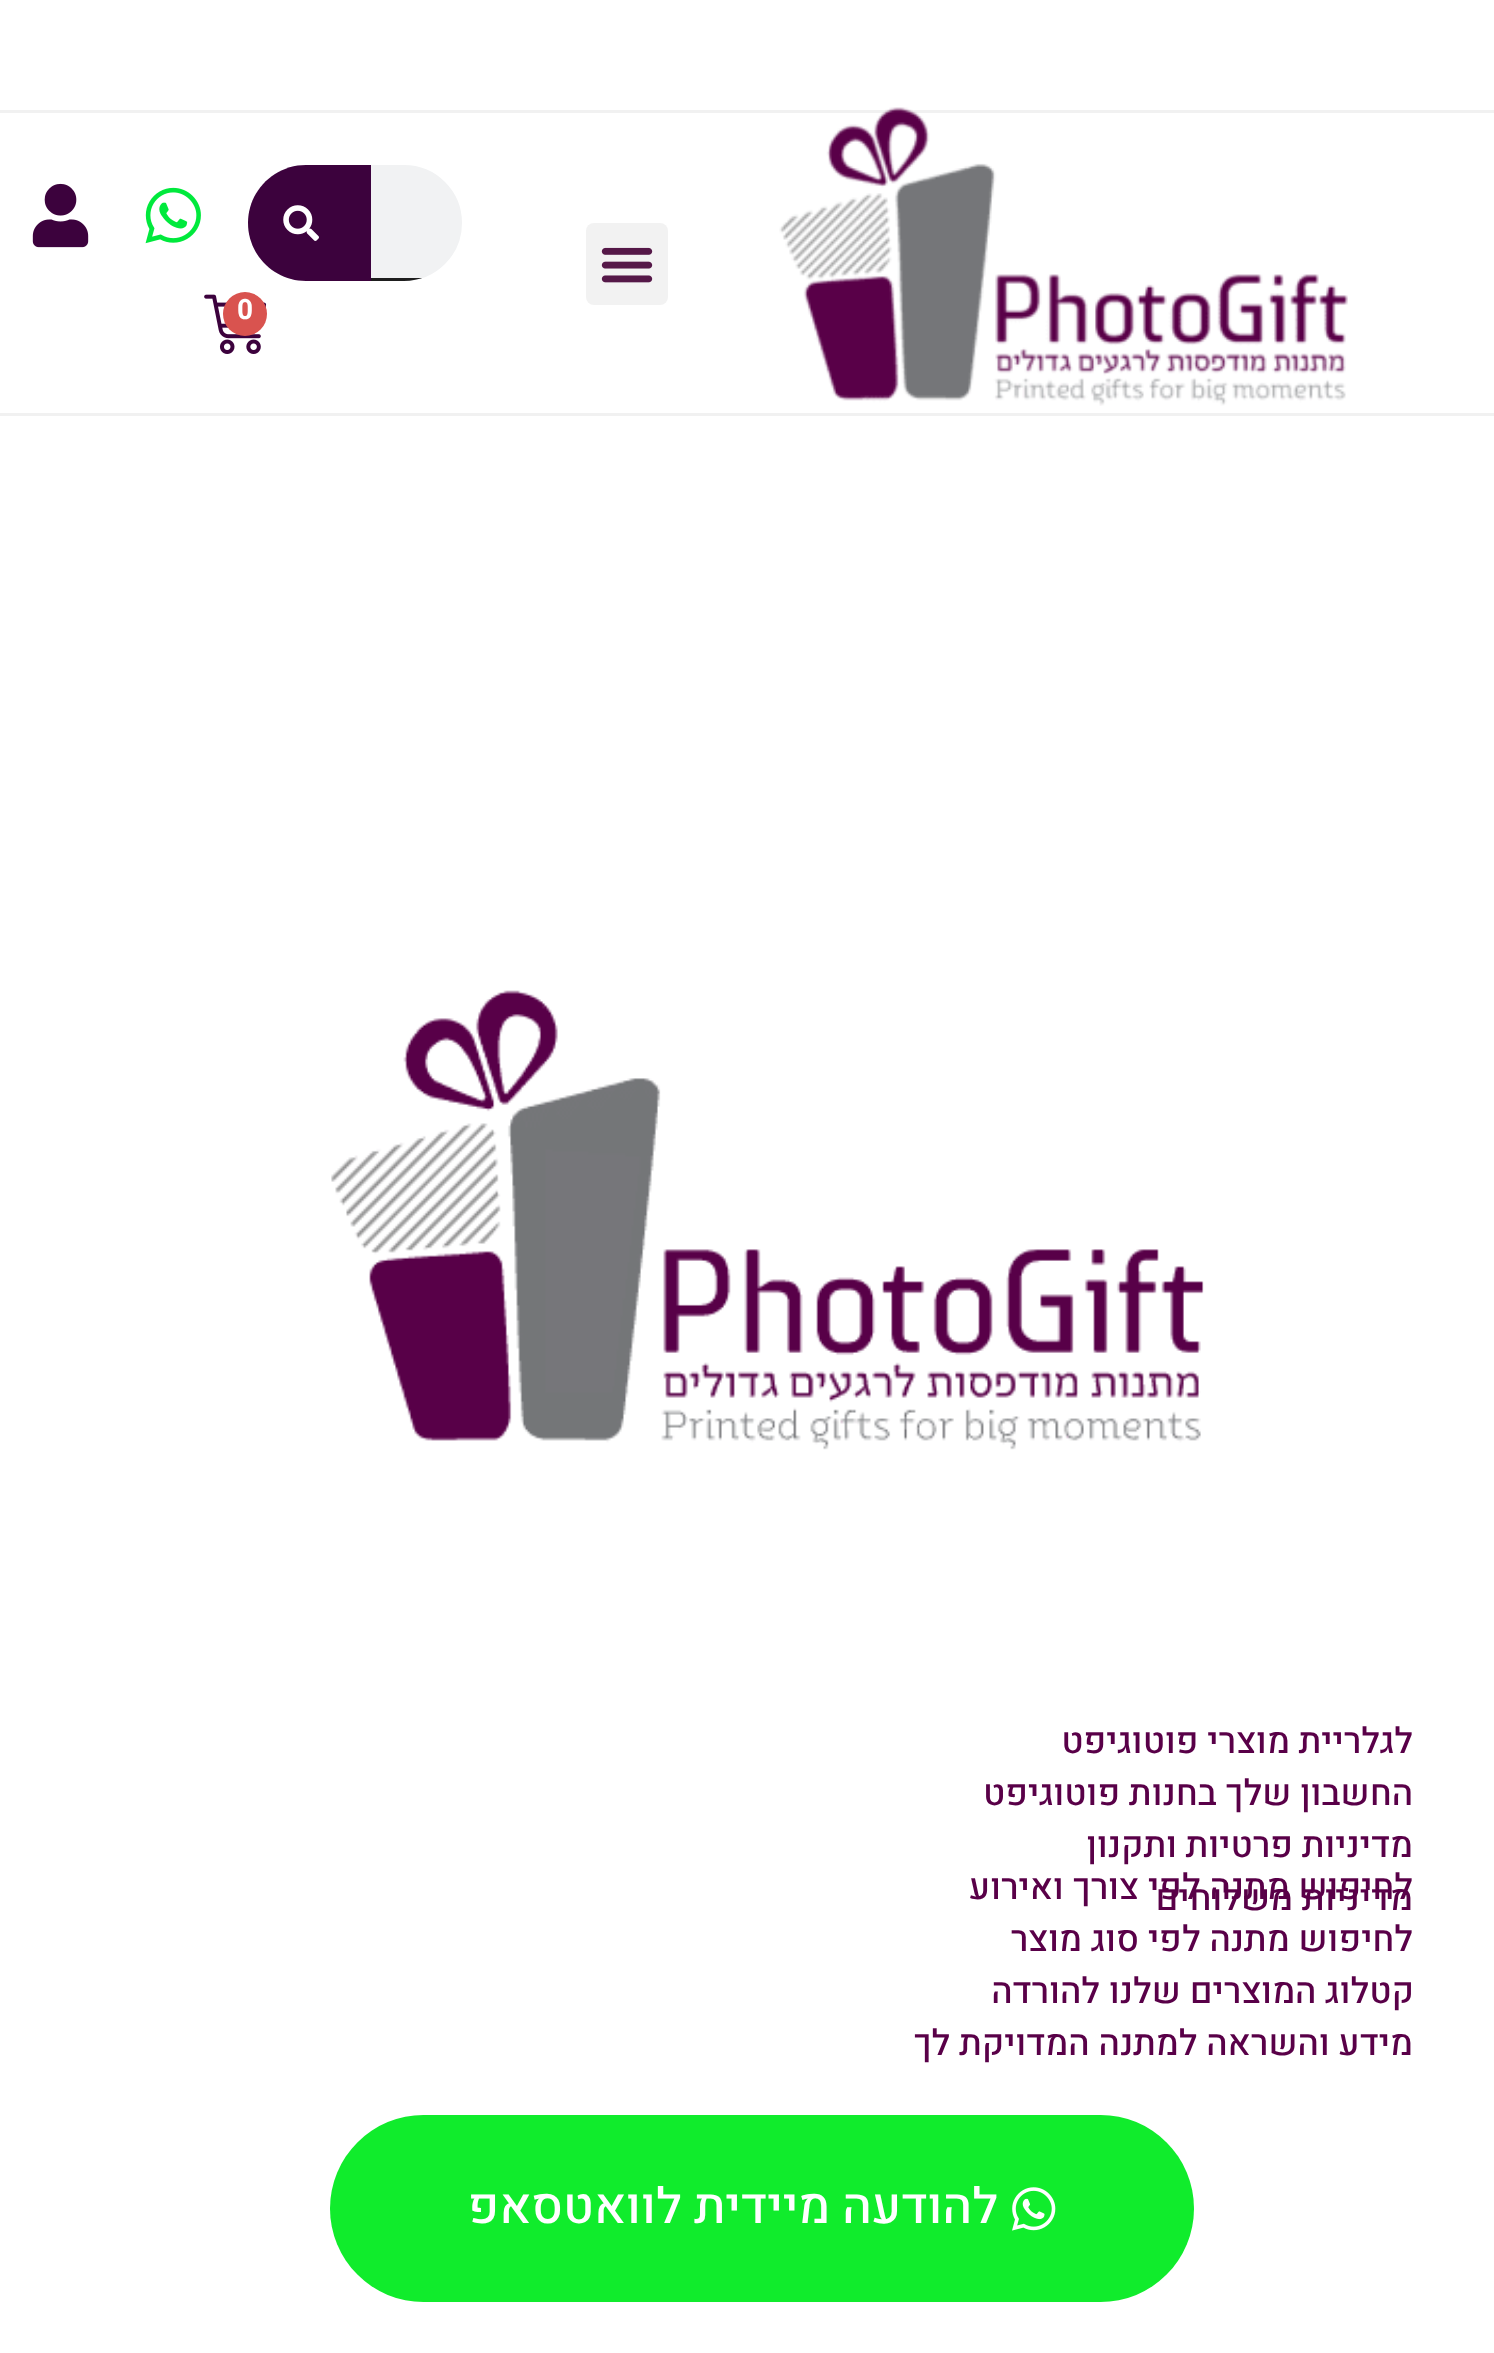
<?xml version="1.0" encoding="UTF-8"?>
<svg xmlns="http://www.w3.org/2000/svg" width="1494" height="2353">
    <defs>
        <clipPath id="clip1"><rect x="248" y="165" width="214" height="116" rx="58"/></clipPath>
    </defs>
    <rect width="100%" height="100%" fill="#FFFFFF"/>
    <rect x="0" y="110" width="1494" height="3" fill="#F1F1F1"/>
    <rect x="0" y="413" width="1494" height="3" fill="#F1F1F1"/>
    <image x="779" y="107" width="569" height="299" href="img_01.png"/>
    <rect x="586" y="223" width="82" height="82" rx="8" fill="#F2F2F2"/>
    <image x="601" y="247" width="52" height="36" href="img_02.png"/>
    <rect x="242.5" y="159.5" width="225" height="127" rx="63.5" fill="#F1F2F3" stroke="#FFFFFF" stroke-width="11"/>
    <g clip-path="url(#clip1)">
        <rect x="371" y="278" width="51" height="3" fill="#1E1E1E"/>
    </g>
    <path d="M 306 165 H 371 V 281 H 306 C 274 281 248 255 248 223 C 248 191 274 165 306 165 Z" fill="#3C023D"/>
    <image x="283" y="205" width="36" height="36" href="img_03.png"/>
    <image x="145" y="187" width="56" height="57" href="img_04.png"/>
    <image x="32" y="183" width="57" height="65" href="img_05.png"/>
    <image x="204" y="294" width="63" height="60" href="img_06.png"/>
    <circle cx="245" cy="314" r="22" fill="#D9534F"/>
    <text x="237" y="319" font-family="Heebo" font-size="28" font-weight="700" fill="#FFFFFF">0</text>
    <image x="331" y="990" width="873" height="460" href="img_07.png"/>
    <text font-family="Heebo" font-size="35.75" font-weight="500" direction="rtl" fill="#590048">
        <tspan x="1413" y="1753">לגלריית מוצרי פוטוגיפט</tspan>
        <tspan x="1413" y="1805">החשבון שלך בחנות פוטוגיפט</tspan>
        <tspan x="1413" y="1857">מדיניות פרטיות ותקנון</tspan>
        <tspan x="1413" y="1910">מדיניות משלוחים</tspan>
    </text>
    <text font-family="Heebo" font-size="35.75" font-weight="500" direction="rtl" fill="#590048">
        <tspan x="1413" y="1899">לחיפוש מתנה לפי צורך ואירוע</tspan>
        <tspan x="1413" y="1951">לחיפוש מתנה לפי סוג מוצר</tspan>
    </text>
    <text x="1414" y="2003" font-family="Heebo" font-size="35.75" font-weight="500" direction="rtl" fill="#590048">קטלוג המוצרים שלנו להורדה</text>
    <text x="1413" y="2055" font-family="Heebo" font-size="35.75" font-weight="500" direction="rtl" fill="#590048">מידע והשראה למתנה המדויקת לך</text>
    <rect x="330" y="2115" width="864" height="187" rx="93.5" fill="#10EC2C"/>
    <image x="1012" y="2187" width="44" height="44" href="img_08.png"/>
    <text x="998" y="2223" font-family="Heebo" font-size="49.5" font-weight="500" direction="rtl" fill="#FFFFFF">להודעה מיידית לוואטסאפ</text>
</svg>
